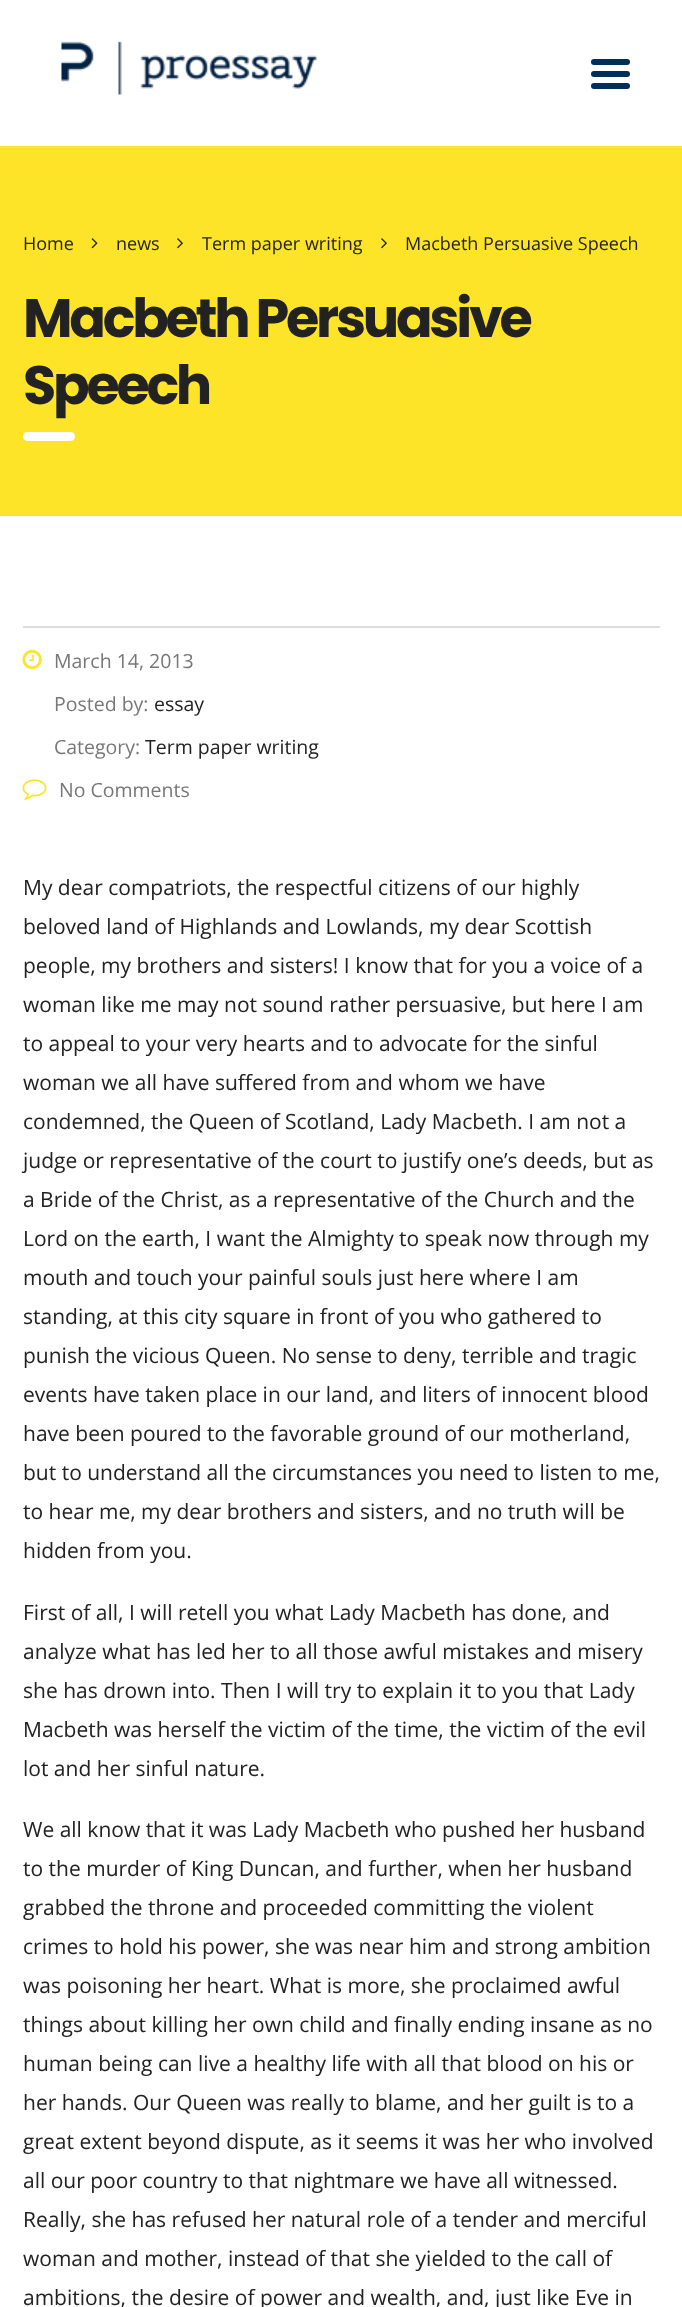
<?xml version="1.0" encoding="UTF-8"?>
<svg xmlns="http://www.w3.org/2000/svg" width="682" height="2307">
    <rect width="100%" height="100%" fill="#FFFFFF"/>
    <image x="61" y="41" width="256" height="54" href="img_01.png"/>
    <rect x="591" y="71" width="39" height="6" rx="3" fill="#002E5B"/>
    <rect x="591" y="59" width="39" height="6" rx="3" fill="#002E5B"/>
    <rect x="591" y="83" width="39" height="6" rx="3" fill="#002E5B"/>
    <rect x="0" y="146" width="682" height="370" fill="#FDE428"/>
    <text x="23" y="250" font-family="Open Sans" font-size="18" fill="#222222">Home</text>
    <image x="91" y="238" width="7" height="11" href="img_02.png"/>
    <text x="116" y="250" font-family="Open Sans" font-size="18" fill="#222222">news</text>
    <image x="177" y="238" width="6" height="11" href="img_03.png"/>
    <text x="202" y="250" font-family="Open Sans" font-size="18" fill="#222222">Term paper writing</text>
    <image x="381" y="238" width="6" height="11" href="img_03.png"/>
    <text x="405" y="250" font-family="Open Sans" font-size="18" fill="#222222">Macbeth Persuasive Speech</text>
    <text font-family="Poppins" font-size="54" font-weight="700" letter-spacing="-3.25" fill="#222222">
        <tspan x="23" y="337">Macbeth Persuasive</tspan>
        <tspan x="23" y="404">Speech</tspan>
    </text>
    <rect x="23" y="432" width="52" height="9" rx="4.5" fill="#FFFFFF"/>
    <rect x="23" y="626" width="637" height="2" fill="#DDDDDD"/>
    <image x="22" y="649" width="20" height="21" href="img_04.png"/>
    <text x="54" y="668" font-family="Open Sans" font-size="19.5" fill="#777777">March 14, 2013</text>
    <text x="54" y="711" font-family="Open Sans" font-size="19.5" fill="#777777">Posted by:</text>
    <text x="154" y="711" font-family="Open Sans" font-size="19.5" fill="#222222">essay</text>
    <text x="54" y="754" font-family="Open Sans" font-size="19.5" fill="#777777">Category:</text>
    <text x="145" y="754" font-family="Open Sans" font-size="19.5" fill="#222222">Term paper writing</text>
    <image x="22" y="779" width="25" height="21" href="img_05.png"/>
    <text x="59" y="797" font-family="Open Sans" font-size="19.5" fill="#777777">No Comments</text>
    <text font-family="Open Sans" font-size="21" fill="#222222">
        <tspan x="23" y="895">My dear compatriots, the respectful citizens of our highly</tspan>
        <tspan x="23" y="934">beloved land of Highlands and Lowlands, my dear Scottish</tspan>
        <tspan x="23" y="973">people, my brothers and sisters! I know that for you a voice of a</tspan>
        <tspan x="23" y="1012">woman like me may not sound rather persuasive, but here I am</tspan>
        <tspan x="23" y="1051">to appeal to your very hearts and to advocate for the sinful</tspan>
        <tspan x="23" y="1090">woman we all have suffered from and whom we have</tspan>
        <tspan x="23" y="1129">condemned, the Queen of Scotland, Lady Macbeth. I am not a</tspan>
        <tspan x="23" y="1168">judge or representative of the court to justify one’s deeds, but as</tspan>
        <tspan x="23" y="1207">a Bride of the Christ, as a representative of the Church and the</tspan>
        <tspan x="23" y="1246">Lord on the earth, I want the Almighty to speak now through my</tspan>
        <tspan x="23" y="1285">mouth and touch your painful souls just here where I am</tspan>
        <tspan x="23" y="1324">standing, at this city square in front of you who gathered to</tspan>
        <tspan x="23" y="1363">punish the vicious Queen. No sense to deny, terrible and tragic</tspan>
        <tspan x="23" y="1402">events have taken place in our land, and liters of innocent blood</tspan>
        <tspan x="23" y="1441">have been poured to the favorable ground of our motherland,</tspan>
        <tspan x="23" y="1480">but to understand all the circumstances you need to listen to me,</tspan>
        <tspan x="23" y="1519">to hear me, my dear brothers and sisters, and no truth will be</tspan>
        <tspan x="23" y="1558">hidden from you.</tspan>
    </text>
    <text font-family="Open Sans" font-size="21" fill="#222222">
        <tspan x="23" y="1620">First of all, I will retell you what Lady Macbeth has done, and</tspan>
        <tspan x="23" y="1659">analyze what has led her to all those awful mistakes and misery</tspan>
        <tspan x="23" y="1698">she has drown into. Then I will try to explain it to you that Lady</tspan>
        <tspan x="23" y="1737">Macbeth was herself the victim of the time, the victim of the evil</tspan>
        <tspan x="23" y="1776">lot and her sinful nature.</tspan>
    </text>
    <text font-family="Open Sans" font-size="21" fill="#222222">
        <tspan x="23" y="1837">We all know that it was Lady Macbeth who pushed her husband</tspan>
        <tspan x="23" y="1876">to the murder of King Duncan, and further, when her husband</tspan>
        <tspan x="23" y="1915">grabbed the throne and proceeded committing the violent</tspan>
        <tspan x="23" y="1954">crimes to hold his power, she was near him and strong ambition</tspan>
        <tspan x="23" y="1993">was poisoning her heart. What is more, she proclaimed awful</tspan>
        <tspan x="23" y="2032">things about killing her own child and finally ending insane as no</tspan>
        <tspan x="23" y="2071">human being can live a healthy life with all that blood on his or</tspan>
        <tspan x="23" y="2110">her hands. Our Queen was really to blame, and her guilt is to a</tspan>
        <tspan x="23" y="2149">great extent beyond dispute, as it seems it was her who involved</tspan>
        <tspan x="23" y="2188">all our poor country to that nightmare we have all witnessed.</tspan>
        <tspan x="23" y="2227">Really, she has refused her natural role of a tender and merciful</tspan>
        <tspan x="23" y="2266">woman and mother, instead of that she yielded to the call of</tspan>
        <tspan x="23" y="2305">ambitions, the desire of power and wealth, and, just like Eve in</tspan>
    </text>
</svg>
